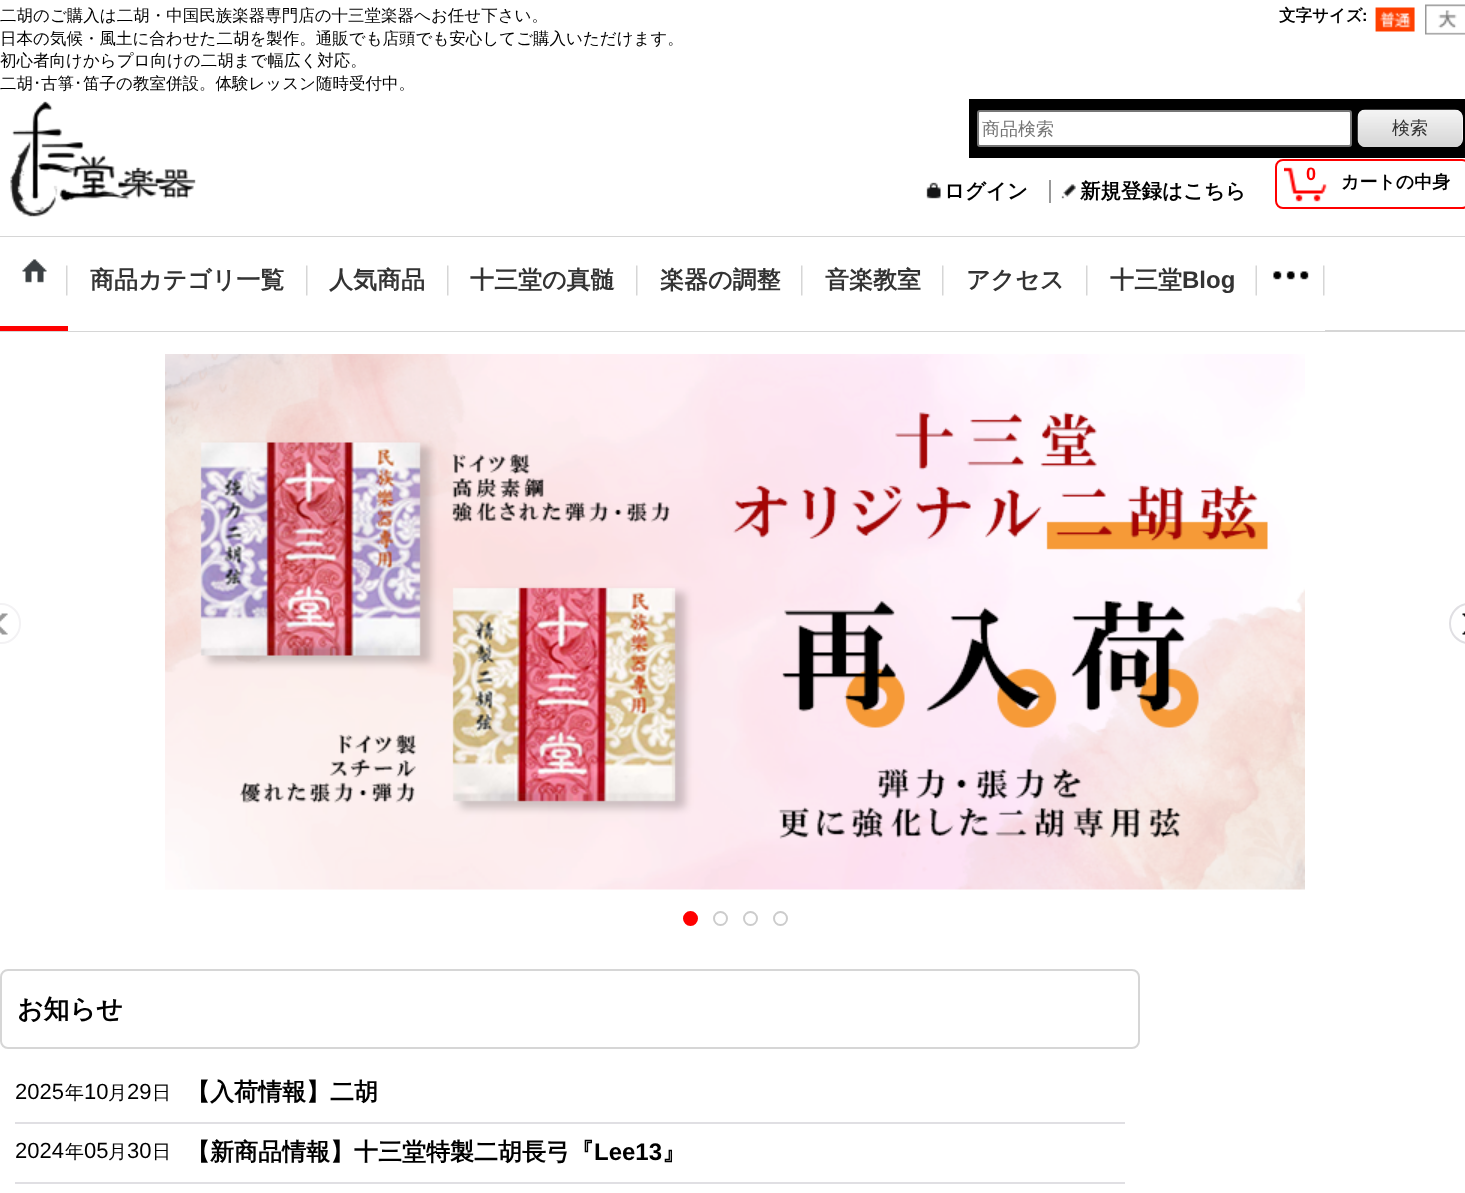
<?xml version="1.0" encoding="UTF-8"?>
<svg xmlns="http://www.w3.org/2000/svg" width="1465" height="1193">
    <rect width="100%" height="100%" fill="#FFFFFF"/>
    <rect x="0" y="236" width="1465" height="1" fill="#D6D6D6"/>
    <text font-family="WenQuanYi Zen Hei" font-size="16.5" font-weight="500" fill="#000000">
        <tspan x="0" y="21">二胡のご購入は二胡・中国民族楽器専門店の十三堂楽器へお任せ下さい。</tspan>
        <tspan x="0" y="44">日本の気候・風土に合わせた二胡を製作。通販でも店頭でも安心してご購入いただけます。</tspan>
        <tspan x="0" y="66">初心者向けからプロ向けの二胡まで幅広く対応。</tspan>
        <tspan x="0" y="89">二胡</tspan>
    </text>
    <text x="33" y="89" font-family="IPAPGothic" font-size="16.5" fill="#000000">･</text>
    <text x="41" y="89" font-family="WenQuanYi Zen Hei" font-size="16.5" font-weight="500" fill="#000000">古箏</text>
    <text x="74" y="89" font-family="IPAPGothic" font-size="16.5" fill="#000000">･</text>
    <text x="83" y="89" font-family="WenQuanYi Zen Hei" font-size="16.5" font-weight="500" fill="#000000">笛子の教室併設。体験レッスン随時受付中。</text>
    <text x="1279" y="21" font-family="WenQuanYi Zen Hei" font-size="16.5" font-weight="700" fill="#000000">文字サイズ</text>
    <text x="1362" y="21" font-family="Liberation Sans" font-size="16.5" font-weight="700" fill="#000000">:</text>
    <image x="1375" y="7" width="40" height="25" href="img_01.png"/>
    <image x="1425" y="4" width="40" height="31" href="img_02.png"/>
    <image x="10" y="101" width="186" height="116" href="img_03.png"/>
    <rect x="969" y="99" width="496" height="59" fill="#000000"/>
    <rect x="978" y="111" width="373" height="35" rx="2" fill="#FFFFFF" stroke="#767676" stroke-width="2"/>
    <text x="982" y="135" font-family="WenQuanYi Zen Hei" font-size="18" font-weight="500" fill="#757575">商品検索</text>
    <rect x="1358" y="110" width="105" height="37" rx="8" fill="#F9F9F9"/>
    <image x="1357" y="109" width="106" height="38" href="img_04.png"/>
    <text x="1392" y="134" font-family="WenQuanYi Zen Hei" font-size="18" font-weight="500" fill="#333333">検索</text>
    <image x="926" y="182" width="15" height="17" href="img_05.png"/>
    <text x="944" y="198" font-family="WenQuanYi Zen Hei" font-size="20.5" font-weight="700" fill="#000000">ログイン</text>
    <rect x="1049" y="180" width="2" height="23" fill="#999999"/>
    <image x="1061" y="184" width="15" height="15" href="img_06.png"/>
    <text x="1080" y="198" font-family="WenQuanYi Zen Hei" font-size="20.5" font-weight="700" fill="#000000">新規登録はこちら</text>
    <rect x="1276" y="160" width="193" height="48" rx="7" fill="none" stroke="#FF0000" stroke-width="2"/>
    <image x="1284" y="167" width="43" height="35" href="img_07.png"/>
    <text x="1306" y="180" font-family="Liberation Sans" font-size="18" font-weight="700" fill="#FF0000">0</text>
    <text x="1341" y="188" font-family="WenQuanYi Zen Hei" font-size="18" font-weight="700" fill="#000000">カートの中身</text>
    <rect x="0" y="330" width="1465" height="2" fill="#D6D6D6"/>
    <rect x="0" y="326" width="68" height="5" fill="#FF0000"/>
    <image x="66" y="265" width="2" height="31" href="img_08.png"/>
    <image x="22" y="259" width="25" height="24" href="img_09.png"/>
    <image x="306" y="265" width="2" height="31" href="img_08.png"/>
    <rect x="68" y="330" width="1257" height="1" fill="#FFFFFF"/>
    <text x="90" y="288" font-family="WenQuanYi Zen Hei" font-size="24" font-weight="700" fill="#333333">商品カテゴリ一覧</text>
    <image x="447" y="265" width="2" height="31" href="img_08.png"/>
    <text x="329" y="288" font-family="WenQuanYi Zen Hei" font-size="24" font-weight="700" fill="#333333">人気商品</text>
    <image x="636" y="265" width="2" height="31" href="img_08.png"/>
    <text x="470" y="288" font-family="WenQuanYi Zen Hei" font-size="24" font-weight="700" fill="#333333">十三堂の真髄</text>
    <image x="801" y="265" width="2" height="31" href="img_08.png"/>
    <text x="660" y="288" font-family="WenQuanYi Zen Hei" font-size="24" font-weight="700" fill="#333333">楽器の調整</text>
    <image x="942" y="265" width="2" height="31" href="img_08.png"/>
    <text x="825" y="288" font-family="WenQuanYi Zen Hei" font-size="24" font-weight="700" fill="#333333">音楽教室</text>
    <image x="1086" y="265" width="2" height="31" href="img_08.png"/>
    <text x="966" y="288" font-family="WenQuanYi Zen Hei" font-size="24" font-weight="700" fill="#333333">アクセス</text>
    <image x="1255" y="265" width="2" height="31" href="img_10.png"/>
    <text x="1110" y="288" font-family="WenQuanYi Zen Hei" font-size="24" font-weight="700" fill="#333333">十三堂</text>
    <text x="1182" y="288" font-family="Liberation Sans" font-size="24" font-weight="700" fill="#333333">Blog</text>
    <image x="1323" y="265" width="2" height="31" href="img_08.png"/>
    <image x="1273" y="271" width="36" height="9" href="img_11.png"/>
    <image x="165" y="354" width="1140" height="536" href="img_12.png"/>
    <image x="0" y="613" width="8" height="22" href="img_13.png"/>
    <rect x="-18" y="604" width="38" height="39" rx="19" fill="none" stroke="#F3F2F4" stroke-width="2"/>
    <image x="1462" y="613" width="3" height="22" href="img_14.png"/>
    <rect x="1450" y="604" width="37" height="39" rx="19.5" fill="none" stroke="#E0DFE3" stroke-width="2"/>
    <circle cx="690.5" cy="918.5" r="6.5" fill="#FF0000" stroke="#FF0000" stroke-width="2"/>
    <circle cx="720.5" cy="918.5" r="6.5" fill="none" stroke="#CCCCCC" stroke-width="2"/>
    <circle cx="750.5" cy="918.5" r="6.5" fill="none" stroke="#CCCCCC" stroke-width="2"/>
    <circle cx="780.5" cy="918.5" r="6.5" fill="none" stroke="#CCCCCC" stroke-width="2"/>
    <rect x="1" y="970" width="1138" height="78" rx="7" fill="none" stroke="#D6D6D6" stroke-width="2"/>
    <text x="17" y="1018" font-family="WenQuanYi Zen Hei" font-size="26" font-weight="700" fill="#000000">お知らせ</text>
    <rect x="15" y="1122" width="1110" height="2" fill="#E0DFE3"/>
    <text x="15" y="1099" font-family="Liberation Sans" font-size="22" fill="#000000">2025</text>
    <text x="65" y="1099" font-family="WenQuanYi Zen Hei" font-size="19" font-weight="500" fill="#000000">年</text>
    <text x="84" y="1099" font-family="Liberation Sans" font-size="22" fill="#000000">10</text>
    <text x="108" y="1099" font-family="WenQuanYi Zen Hei" font-size="19" font-weight="500" fill="#000000">月</text>
    <text x="127" y="1099" font-family="Liberation Sans" font-size="22" fill="#000000">29</text>
    <text x="152" y="1099" font-family="WenQuanYi Zen Hei" font-size="19" font-weight="500" fill="#000000">日</text>
    <text x="186" y="1100" font-family="WenQuanYi Zen Hei" font-size="24" font-weight="700" fill="#000000">【入荷情報】二胡</text>
    <rect x="15" y="1182" width="1110" height="2" fill="#E0DFE3"/>
    <text x="15" y="1158" font-family="Liberation Sans" font-size="22" fill="#000000">2024</text>
    <text x="65" y="1158" font-family="WenQuanYi Zen Hei" font-size="19" font-weight="500" fill="#000000">年</text>
    <text x="84" y="1158" font-family="Liberation Sans" font-size="22" fill="#000000">05</text>
    <text x="108" y="1158" font-family="WenQuanYi Zen Hei" font-size="19" font-weight="500" fill="#000000">月</text>
    <text x="127" y="1158" font-family="Liberation Sans" font-size="22" fill="#000000">30</text>
    <text x="152" y="1158" font-family="WenQuanYi Zen Hei" font-size="19" font-weight="500" fill="#000000">日</text>
    <text x="186" y="1160" font-family="WenQuanYi Zen Hei" font-size="24" font-weight="700" fill="#000000">【新商品情報】十三堂特製二胡長弓『</text>
    <text x="594" y="1160" font-family="Liberation Sans" font-size="24" font-weight="700" fill="#000000">Lee13</text>
    <text x="662" y="1160" font-family="WenQuanYi Zen Hei" font-size="24" font-weight="700" fill="#000000">』</text>
</svg>
